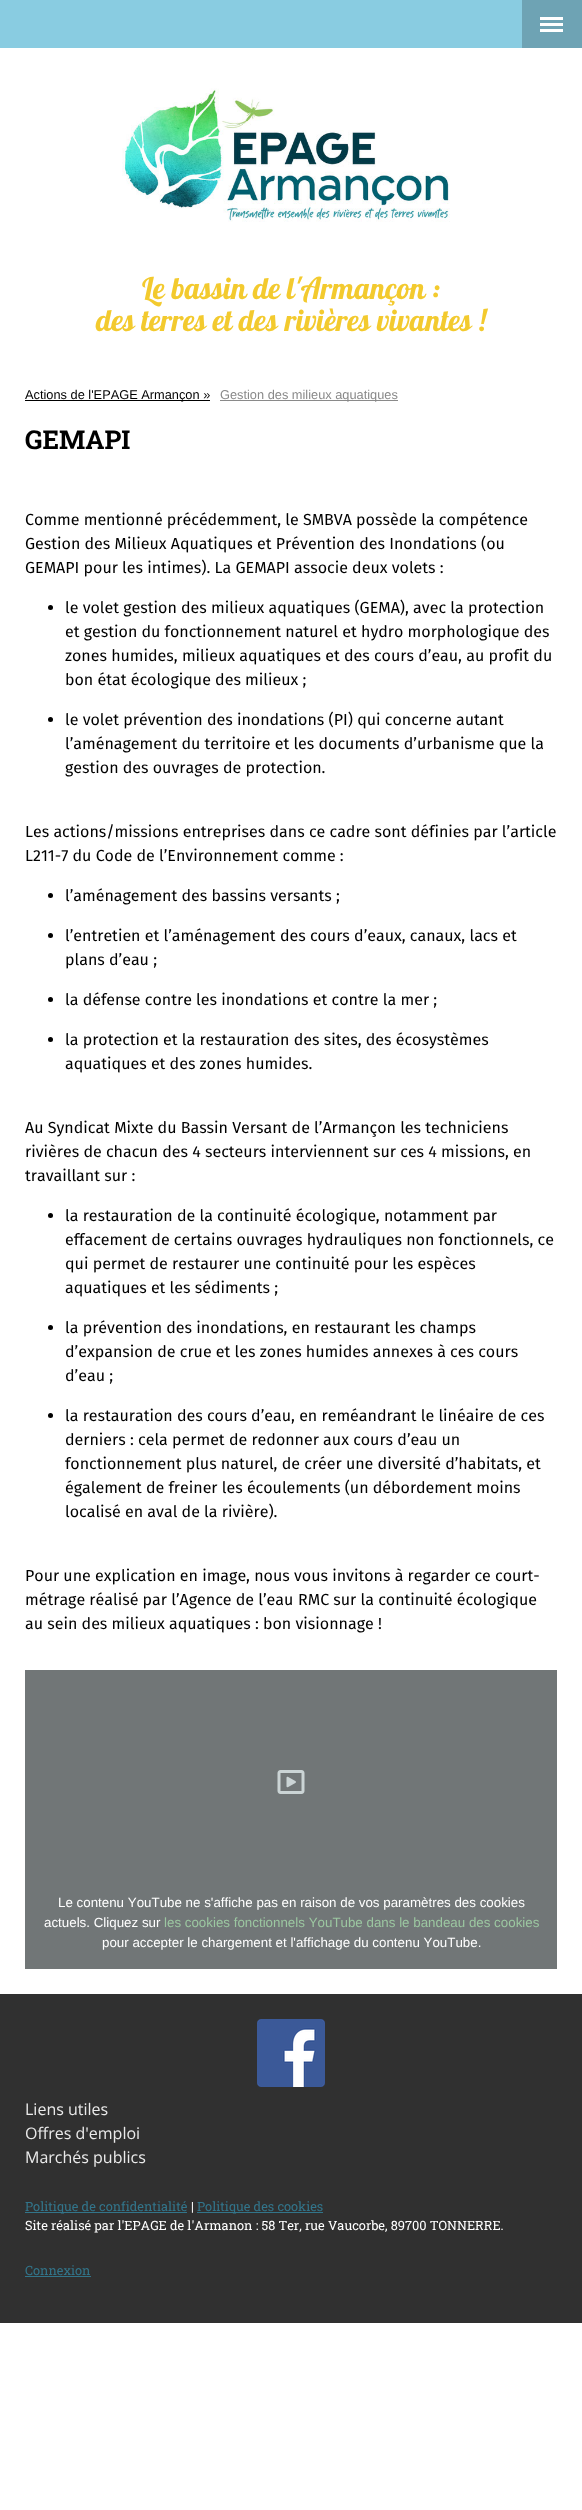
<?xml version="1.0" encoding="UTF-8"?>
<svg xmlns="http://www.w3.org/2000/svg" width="582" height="2510">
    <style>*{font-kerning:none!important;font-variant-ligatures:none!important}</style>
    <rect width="100%" height="100%" fill="#FFFFFF"/>
    <rect x="522" y="0" width="60" height="48" fill="#6EA3B4"/>
    <rect x="540" y="23" width="23" height="3" fill="#FFFFFF"/>
    <rect x="540" y="17" width="23" height="3" fill="#FFFFFF"/>
    <rect x="540" y="29" width="23" height="3" fill="#FFFFFF"/>
    <rect x="0" y="0" width="522" height="48" fill="#89CCE1"/>
    <image x="122" y="88" width="328" height="134" href="img_01.png"/>
    <text x="142" y="299" font-family="Lobster" font-size="30" fill="#F3CA2E">Le bassin de l'Armançon</text>
    <text x="432" y="299" font-family="Lobster" font-size="30" fill="#F3CA2E">:</text>
    <text x="96" y="331" font-family="Lobster" font-size="30" fill="#F3CA2E">des terres et des</text>
    <text x="285" y="331" font-family="Lobster" font-size="30" fill="#F3CA2E">rivières vivantes !</text>
    <rect x="25" y="400" width="185" height="1" fill="#000000"/>
    <text x="25" y="399" font-family="Liberation Sans" font-size="12.8" fill="#000000">Actions de l'EPAGE Armançon »</text>
    <rect x="220" y="400" width="178" height="1" fill="#8A8A8A"/>
    <text x="220" y="399" font-family="Liberation Sans" font-size="12.8" fill="#898989">Gestion des milieux aquatiques</text>
    <text x="25" y="449" font-family="Roboto Slab" font-size="26" font-weight="700" fill="#000000">GEMAPI</text>
    <text font-family="Fira Sans" font-size="16" fill="#000000">
        <tspan x="25" y="525">Comme mentionné précédemment, le SMBVA possède la compétence</tspan>
        <tspan x="25" y="549">Gestion des Milieux Aquatiques et Prévention des Inondations (ou</tspan>
        <tspan x="25" y="573">GEMAPI pour les intimes). La GEMAPI associe deux volets :</tspan>
    </text>
    <circle cx="50.5" cy="607.5" r="2.5" fill="#000000"/>
    <text font-family="Fira Sans" font-size="16" fill="#000000">
        <tspan x="65" y="613">le volet gestion des milieux aquatiques (GEMA), avec la protection</tspan>
        <tspan x="65" y="637">et gestion du fonctionnement naturel et hydro morphologique des</tspan>
        <tspan x="65" y="661">zones humides, milieux aquatiques et des cours d’eau, au profit du</tspan>
        <tspan x="65" y="685">bon état écologique des milieux ;</tspan>
    </text>
    <circle cx="50.5" cy="719.5" r="2.5" fill="#000000"/>
    <text font-family="Fira Sans" font-size="16" fill="#000000">
        <tspan x="65" y="725">le volet prévention des inondations (PI) qui concerne autant</tspan>
        <tspan x="65" y="749">l’aménagement du territoire et les documents d’urbanisme que la</tspan>
        <tspan x="65" y="773">gestion des ouvrages de protection.</tspan>
    </text>
    <text font-family="Fira Sans" font-size="16" fill="#000000">
        <tspan x="25" y="837">Les actions/missions entreprises dans ce cadre sont définies par l’article</tspan>
        <tspan x="25" y="861">L211-7 du Code de l’Environnement comme :</tspan>
    </text>
    <circle cx="50.5" cy="895.5" r="2.5" fill="#000000"/>
    <text x="65" y="901" font-family="Fira Sans" font-size="16" fill="#000000">l’aménagement des bassins versants ;</text>
    <circle cx="50.5" cy="935.5" r="2.5" fill="#000000"/>
    <text font-family="Fira Sans" font-size="16" fill="#000000">
        <tspan x="65" y="941">l’entretien et l’aménagement des cours d’eaux, canaux, lacs et</tspan>
        <tspan x="65" y="965">plans d’eau ;</tspan>
    </text>
    <circle cx="50.5" cy="999.5" r="2.5" fill="#000000"/>
    <text x="65" y="1005" font-family="Fira Sans" font-size="16" fill="#000000">la défense contre les inondations et contre la mer ;</text>
    <circle cx="50.5" cy="1039.5" r="2.5" fill="#000000"/>
    <text font-family="Fira Sans" font-size="16" fill="#000000">
        <tspan x="65" y="1045">la protection et la restauration des sites, des écosystèmes</tspan>
        <tspan x="65" y="1069">aquatiques et des zones humides.</tspan>
    </text>
    <text font-family="Fira Sans" font-size="16" fill="#000000">
        <tspan x="25" y="1133">Au Syndicat Mixte du Bassin Versant de l’Armançon les techniciens</tspan>
        <tspan x="25" y="1157">rivières de chacun des 4 secteurs interviennent sur ces 4 missions, en</tspan>
        <tspan x="25" y="1181">travaillant sur :</tspan>
    </text>
    <circle cx="50.5" cy="1215.5" r="2.5" fill="#000000"/>
    <text font-family="Fira Sans" font-size="16" fill="#000000">
        <tspan x="65" y="1221">la restauration de la continuité écologique, notamment par</tspan>
        <tspan x="65" y="1245">effacement de certains ouvrages hydrauliques non fonctionnels, ce</tspan>
        <tspan x="65" y="1269">qui permet de restaurer une continuité pour les espèces</tspan>
        <tspan x="65" y="1293">aquatiques et les sédiments ;</tspan>
    </text>
    <circle cx="50.5" cy="1327.5" r="2.5" fill="#000000"/>
    <text font-family="Fira Sans" font-size="16" fill="#000000">
        <tspan x="65" y="1333">la prévention des inondations, en restaurant les champs</tspan>
        <tspan x="65" y="1357">d’expansion de crue et les zones humides annexes à ces cours</tspan>
        <tspan x="65" y="1381">d’eau ;</tspan>
    </text>
    <circle cx="50.5" cy="1415.5" r="2.5" fill="#000000"/>
    <text x="65" y="1421" font-family="Fira Sans" font-size="16" fill="#000000">la restauration des cours d’eau, en reméandrant le linéaire</text>
    <text x="498" y="1421" font-family="Fira Sans" font-size="16" fill="#000000">de ces</text>
    <text font-family="Fira Sans" font-size="16" fill="#000000">
        <tspan x="65" y="1445">derniers : cela permet de redonner aux cours d’eau un</tspan>
        <tspan x="65" y="1469">fonctionnement plus naturel, de créer une diversité d’habitats, et</tspan>
        <tspan x="65" y="1493">également de freiner les écoulements (un débordement moins</tspan>
        <tspan x="65" y="1517">localisé en aval de la rivière).</tspan>
    </text>
    <text font-family="Fira Sans" font-size="16" fill="#000000">
        <tspan x="25" y="1581">Pour une explication en image, nous vous invitons à regarder ce court-</tspan>
        <tspan x="25" y="1605">métrage réalisé par l’Agence de l’eau</tspan>
    </text>
    <text x="298" y="1605" font-family="Fira Sans" font-size="16" fill="#000000">RMC sur la continuité écologique</text>
    <text x="25" y="1629" font-family="Fira Sans" font-size="16" fill="#000000">au sein des milieux aquatiques : bon visionnage !</text>
    <rect x="25" y="1670" width="532" height="299" fill="#717677"/>
    <image x="277" y="1770" width="28" height="24" href="img_02.png"/>
    <text x="58" y="1907" font-family="Liberation Sans" font-size="13.35" fill="#FFFFFF">Le contenu YouTube ne s'affiche pas en raison de vos paramètres des cookies</text>
    <text x="44" y="1927" font-family="Liberation Sans" font-size="13.35" fill="#FFFFFF">actuels. Cliquez sur</text>
    <text x="164" y="1927" font-family="Liberation Sans" font-size="13.35" fill="#9CC7A1">les cookies fonctionnels YouTube dans le bandeau des cookies</text>
    <text x="102" y="1947" font-family="Liberation Sans" font-size="13.35" fill="#FFFFFF">pour accepter le chargement et l'affichage du contenu YouTube.</text>
    <rect x="0" y="1994" width="582" height="329" fill="#303030"/>
    <image x="257" y="2019" width="68" height="68" href="img_03.png"/>
    <text font-family="Open Sans" font-size="16" fill="#EAEAEA">
        <tspan x="25" y="2115">Liens utiles</tspan>
        <tspan x="25" y="2139">Offres d'emploi</tspan>
        <tspan x="25" y="2163">Marchés publics</tspan>
    </text>
    <rect x="25" y="2212" width="162" height="1" fill="#32758A"/>
    <text x="25" y="2211" font-family="Roboto Slab" font-size="12.8" fill="#32758B">Politique de confidentialité</text>
    <text x="191" y="2211" font-family="Roboto Slab" font-size="12.8" fill="#FFFFFF">|</text>
    <rect x="197" y="2212" width="126" height="1" fill="#32758A"/>
    <text x="197" y="2211" font-family="Roboto Slab" font-size="12.8" fill="#32758B">Politique des cookies</text>
    <text x="25" y="2230" font-family="Roboto Slab" font-size="12.8" fill="#FFFFFF">Site réalisé par l'EPAGE de l'Armanon : 58 Ter,</text>
    <text x="305" y="2230" font-family="Roboto Slab" font-size="12.8" fill="#FFFFFF">rue Vaucorbe, 89700 TONNERRE.</text>
    <text x="25" y="2275" font-family="Roboto Slab" font-size="12.8" fill="#32758B">Connexion</text>
    <rect x="25" y="2276" width="66" height="1" fill="#32758A"/>
</svg>
